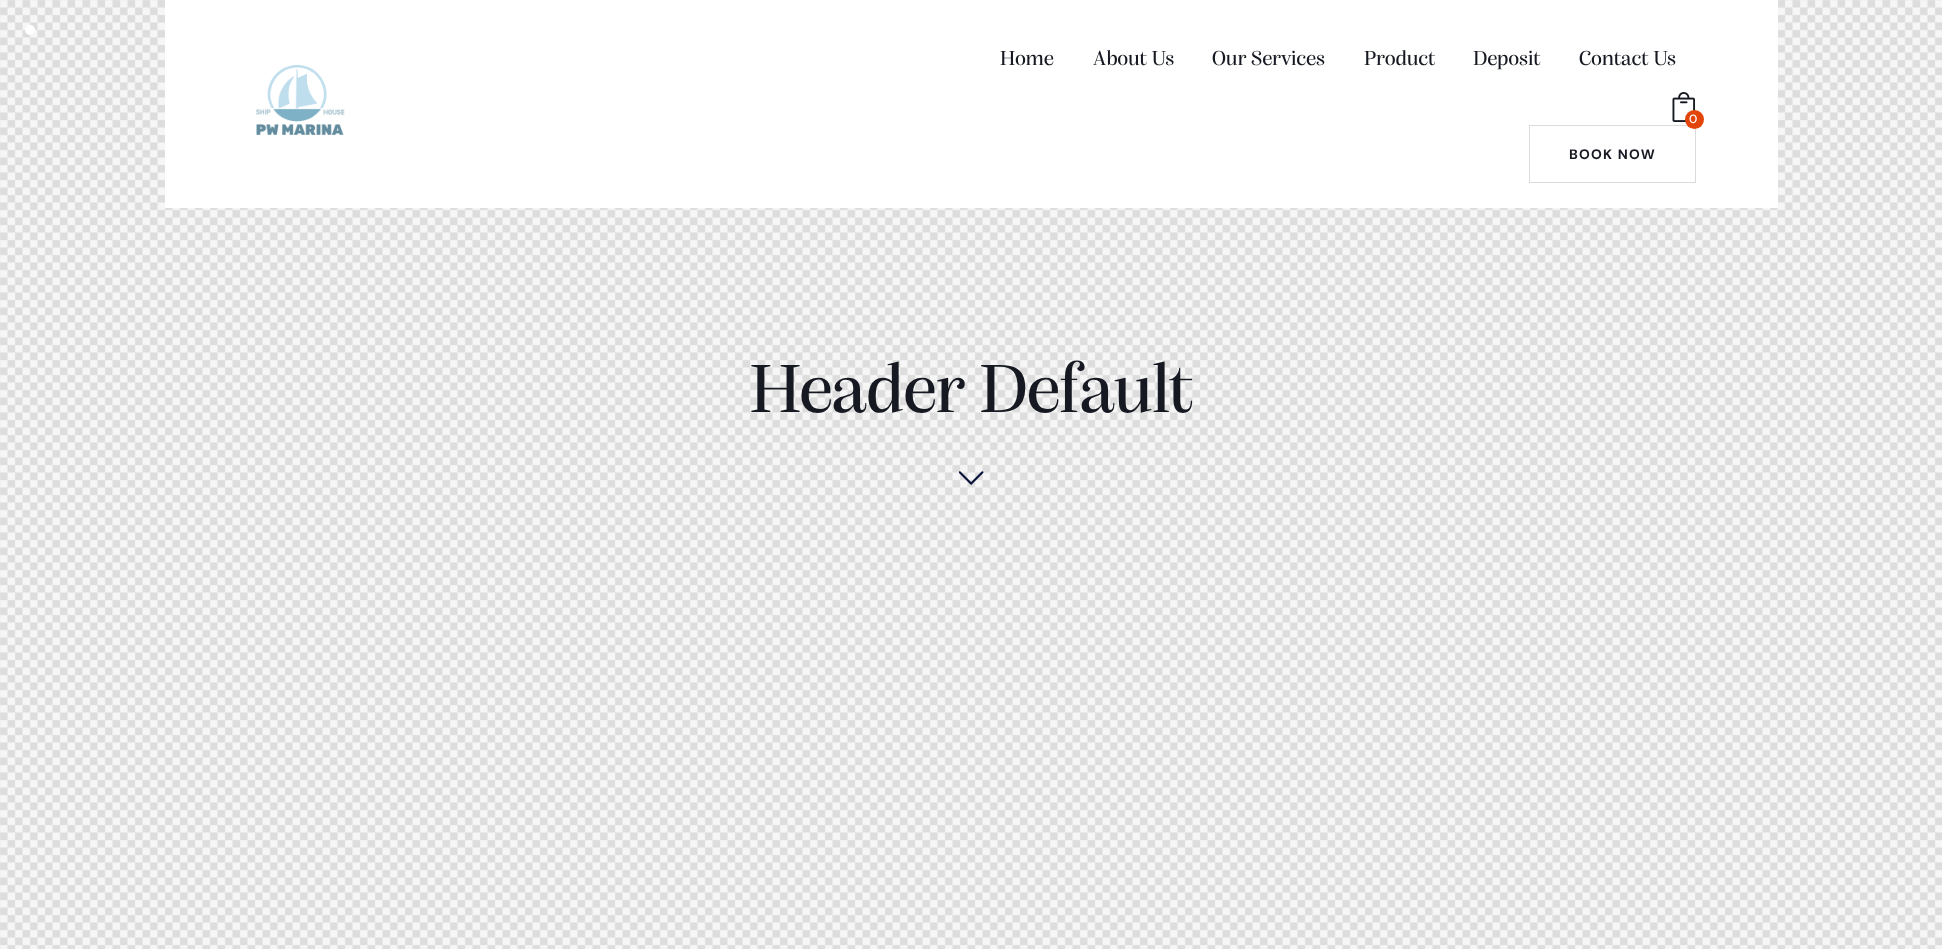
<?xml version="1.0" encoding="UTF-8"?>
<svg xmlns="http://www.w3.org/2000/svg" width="1942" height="949">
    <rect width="100%" height="100%" fill="#FFFFFF"/>
    <image x="0" y="0" width="1942" height="949" href="img_01.png"/>
    <circle cx="30" cy="30" r="5" fill="#FFFFFF"/>
    <rect x="165" y="0" width="1613" height="208" fill="#FFFFFF"/>
    <image x="256" y="65" width="89" height="70" href="img_02.png"/>
    <text x="1000" y="65" font-family="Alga" font-size="21.25" font-weight="500" letter-spacing="0.25" fill="#161921">Home</text>
    <text x="1093" y="65" font-family="Alga" font-size="21.25" font-weight="500" letter-spacing="0.25" fill="#161921">About Us</text>
    <text x="1212" y="65" font-family="Alga" font-size="21.25" font-weight="500" letter-spacing="0.25" fill="#161921">Our Services</text>
    <text x="1364" y="65" font-family="Alga" font-size="21.25" font-weight="500" letter-spacing="0.25" fill="#161921">Product</text>
    <text x="1473" y="65" font-family="Alga" font-size="21.25" font-weight="500" letter-spacing="0.25" fill="#161921">Deposit</text>
    <text x="1579" y="65" font-family="Alga" font-size="21.25" font-weight="500" letter-spacing="0.25" fill="#161921">Contact Us</text>
    <image x="1672" y="92" width="23" height="30" href="img_03.png"/>
    <rect x="1529.5" y="125.5" width="166" height="57" fill="none" stroke="#DBDBDB"/>
    <circle cx="1694.5" cy="119.5" r="9.5" fill="#E2440A"/>
    <text x="1689" y="123" font-family="DM Sans" font-size="12" font-weight="500" fill="#FFFFFF">0</text>
    <text x="1569" y="159" font-family="DM Sans" font-size="13.75" font-weight="700" letter-spacing="1.25" fill="#161921">BOOK NOW</text>
    <text x="750" y="412" font-family="Alga" font-size="71.25" font-weight="500" fill="#161921">Header Default</text>
    <image x="959" y="471" width="25" height="14" href="img_04.png"/>
</svg>
